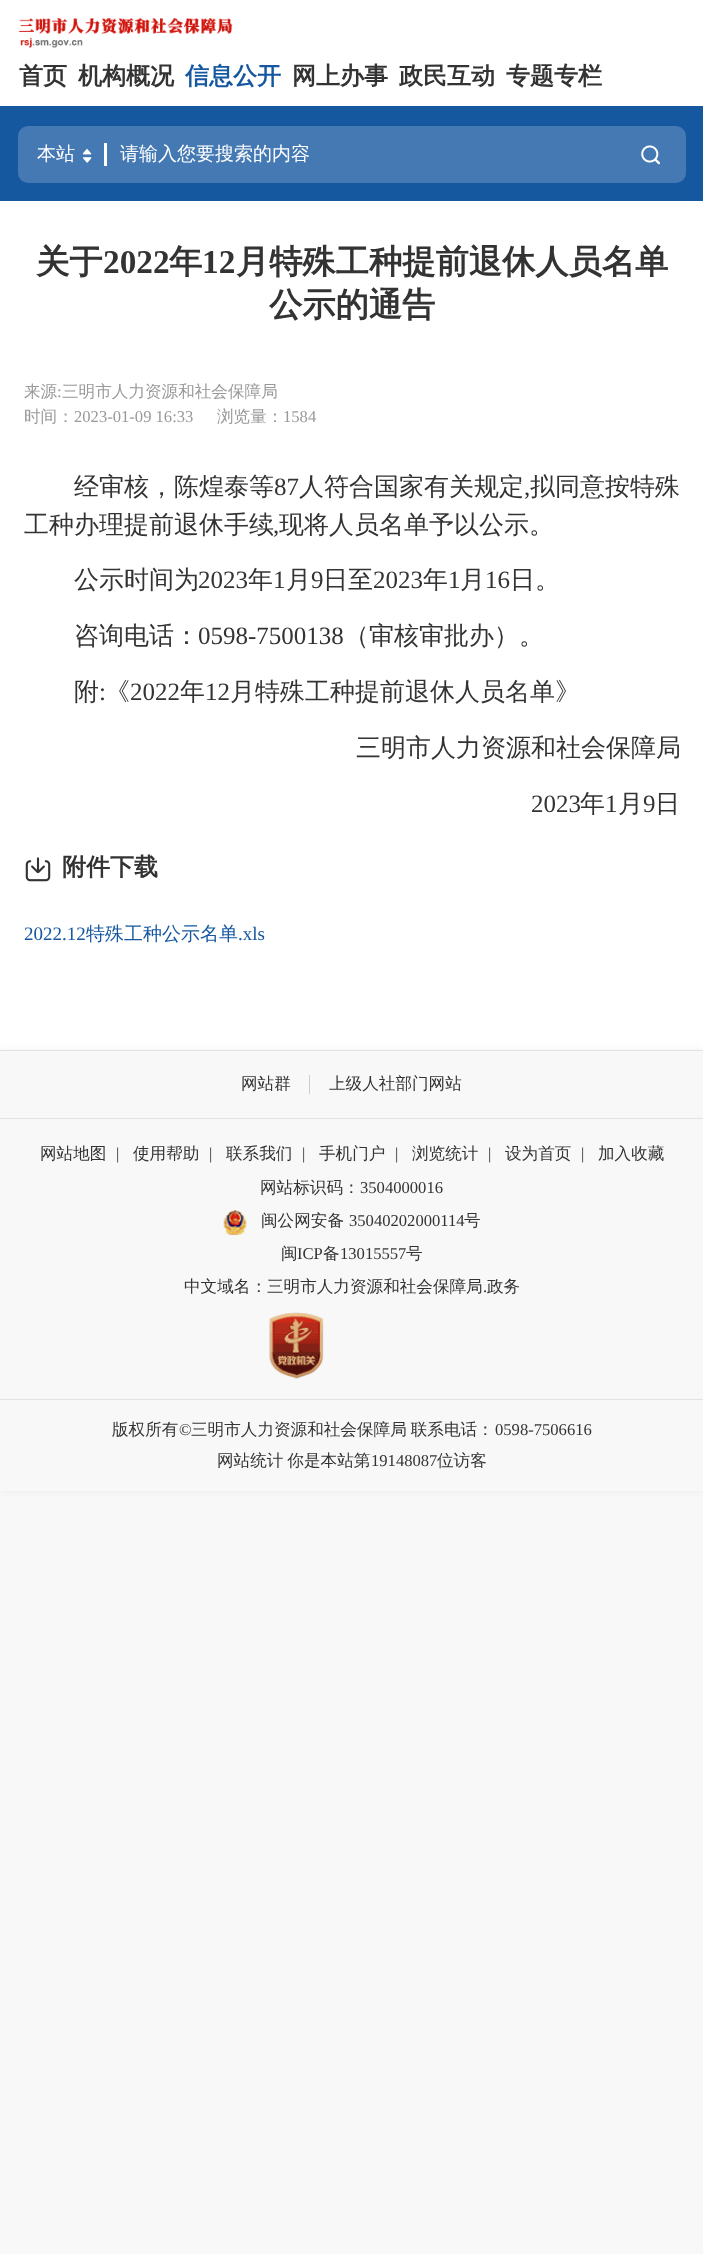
<?xml version="1.0" encoding="UTF-8"?>
<svg xmlns="http://www.w3.org/2000/svg" width="703" height="2254">
    <defs>
        <filter id="blur1" x="-50%" y="-200%" width="200%" height="500%"><feGaussianBlur stdDeviation="4"/></filter>
    </defs>
    <rect width="100%" height="100%" fill="#F8F8F8"/>
    <rect x="0" y="0" width="703" height="1050" fill="#FFFFFF"/>
    <image x="18" y="18" width="215" height="30" href="img_01.png"/>
    <text x="19" y="84" font-family="WenQuanYi Zen Hei" font-size="24" font-weight="700" fill="#333333">首页</text>
    <text x="78" y="84" font-family="WenQuanYi Zen Hei" font-size="24" font-weight="700" fill="#333333">机构概况</text>
    <text x="185" y="84" font-family="WenQuanYi Zen Hei" font-size="24" font-weight="700" fill="#1658A0">信息公开</text>
    <text x="292" y="84" font-family="WenQuanYi Zen Hei" font-size="24" font-weight="700" fill="#333333">网上办事</text>
    <text x="399" y="84" font-family="WenQuanYi Zen Hei" font-size="24" font-weight="700" fill="#333333">政民互动</text>
    <text x="506" y="84" font-family="WenQuanYi Zen Hei" font-size="24" font-weight="700" fill="#333333">专题专栏</text>
    <rect x="0" y="106" width="703" height="95" fill="#1658A0"/>
    <rect x="18" y="126" width="668" height="57" rx="10" fill="#4579B3"/>
    <text x="37" y="160" font-family="WenQuanYi Zen Hei" font-size="19" font-weight="500" fill="#FFFFFF">本站</text>
    <image x="82" y="148" width="10" height="15" href="img_02.png"/>
    <rect x="104" y="143" width="3" height="23" fill="#FFFFFF"/>
    <text x="120" y="160" font-family="WenQuanYi Zen Hei" font-size="19" font-weight="500" fill="#FFFFFF">请输入您要搜索的内容</text>
    <image x="641" y="145" width="19" height="20" href="img_03.png"/>
    <text x="36" y="273" font-family="WenQuanYi Zen Hei" font-size="33.25" font-weight="700" fill="#333333">关于</text>
    <text x="103" y="273" font-family="Liberation Serif" font-size="33.25" font-weight="700" fill="#333333">2022</text>
    <text x="169" y="273" font-family="WenQuanYi Zen Hei" font-size="33.25" font-weight="700" fill="#333333">年</text>
    <text x="202" y="273" font-family="Liberation Serif" font-size="33.25" font-weight="700" fill="#333333">12</text>
    <text x="236" y="273" font-family="WenQuanYi Zen Hei" font-size="33.25" font-weight="700" fill="#333333">月特殊工种提前退休人员名单</text>
    <text x="269" y="316" font-family="WenQuanYi Zen Hei" font-size="33.25" font-weight="700" fill="#333333">公示的通告</text>
    <text x="24" y="397" font-family="WenQuanYi Zen Hei" font-size="16.6" font-weight="500" fill="#999999">来源</text>
    <text x="57" y="397" font-family="Liberation Serif" font-size="16.6" fill="#999999">:</text>
    <text x="62" y="397" font-family="WenQuanYi Zen Hei" font-size="16.6" font-weight="500" fill="#999999">三明市人力资源和社会保障局</text>
    <text x="24" y="422" font-family="WenQuanYi Zen Hei" font-size="16.6" font-weight="500" fill="#999999">时间：</text>
    <text x="74" y="422" font-family="Liberation Serif" font-size="16.6" fill="#999999">2023-01-09 16:33</text>
    <text x="217" y="422" font-family="WenQuanYi Zen Hei" font-size="16.6" font-weight="500" fill="#999999">浏览量：</text>
    <text x="283" y="422" font-family="Liberation Serif" font-size="16.6" fill="#999999">1584</text>
    <text x="74" y="495" font-family="WenQuanYi Zen Hei" font-size="25" font-weight="500" fill="#333333">经审核，陈煌泰等</text>
    <text x="274" y="495" font-family="Liberation Serif" font-size="25" fill="#333333">87</text>
    <text x="299" y="495" font-family="WenQuanYi Zen Hei" font-size="25" font-weight="500" fill="#333333">人符合国家有关规定</text>
    <text x="524" y="495" font-family="Liberation Serif" font-size="25" fill="#333333">,</text>
    <text x="530" y="495" font-family="WenQuanYi Zen Hei" font-size="25" font-weight="500" fill="#333333">拟同意按特殊</text>
    <text x="24" y="533" font-family="WenQuanYi Zen Hei" font-size="25" font-weight="500" fill="#333333">工种办理提前退休手续</text>
    <text x="273" y="533" font-family="Liberation Serif" font-size="25" fill="#333333">,</text>
    <text x="279" y="533" font-family="WenQuanYi Zen Hei" font-size="25" font-weight="500" fill="#333333">现将人员名单予以公示。</text>
    <text x="74" y="588" font-family="WenQuanYi Zen Hei" font-size="25" font-weight="500" fill="#333333">公示时间为</text>
    <text x="198" y="588" font-family="Liberation Serif" font-size="25" fill="#333333">2023</text>
    <text x="248" y="588" font-family="WenQuanYi Zen Hei" font-size="25" font-weight="500" fill="#333333">年</text>
    <text x="273" y="588" font-family="Liberation Serif" font-size="25" fill="#333333">1</text>
    <text x="286" y="588" font-family="WenQuanYi Zen Hei" font-size="25" font-weight="500" fill="#333333">月</text>
    <text x="311" y="588" font-family="Liberation Serif" font-size="25" fill="#333333">9</text>
    <text x="323" y="588" font-family="WenQuanYi Zen Hei" font-size="25" font-weight="500" fill="#333333">日至</text>
    <text x="373" y="588" font-family="Liberation Serif" font-size="25" fill="#333333">2023</text>
    <text x="423" y="588" font-family="WenQuanYi Zen Hei" font-size="25" font-weight="500" fill="#333333">年</text>
    <text x="448" y="588" font-family="Liberation Serif" font-size="25" fill="#333333">1</text>
    <text x="460" y="588" font-family="WenQuanYi Zen Hei" font-size="25" font-weight="500" fill="#333333">月</text>
    <text x="485" y="588" font-family="Liberation Serif" font-size="25" fill="#333333">16</text>
    <text x="510" y="588" font-family="WenQuanYi Zen Hei" font-size="25" font-weight="500" fill="#333333">日。</text>
    <text x="74" y="644" font-family="WenQuanYi Zen Hei" font-size="25" font-weight="500" fill="#333333">咨询电话：</text>
    <text x="198" y="644" font-family="Liberation Serif" font-size="25" fill="#333333">0598-7500138</text>
    <text x="344" y="644" font-family="WenQuanYi Zen Hei" font-size="25" font-weight="500" fill="#333333">（审核审批办）。</text>
    <text x="74" y="700" font-family="WenQuanYi Zen Hei" font-size="25" font-weight="500" fill="#333333">附</text>
    <text x="99" y="700" font-family="Liberation Serif" font-size="25" fill="#333333">:</text>
    <text x="105" y="700" font-family="WenQuanYi Zen Hei" font-size="25" font-weight="500" fill="#333333">《</text>
    <text x="130" y="700" font-family="Liberation Serif" font-size="25" fill="#333333">2022</text>
    <text x="180" y="700" font-family="WenQuanYi Zen Hei" font-size="25" font-weight="500" fill="#333333">年</text>
    <text x="205" y="700" font-family="Liberation Serif" font-size="25" fill="#333333">12</text>
    <text x="230" y="700" font-family="WenQuanYi Zen Hei" font-size="25" font-weight="500" fill="#333333">月特殊工种提前退休人员名单》</text>
    <text x="356" y="756" font-family="WenQuanYi Zen Hei" font-size="25" font-weight="500" fill="#333333">三明市人力资源和社会保障局</text>
    <text x="531" y="812" font-family="Liberation Serif" font-size="25" fill="#333333">2023</text>
    <text x="580" y="812" font-family="WenQuanYi Zen Hei" font-size="25" font-weight="500" fill="#333333">年</text>
    <text x="605" y="812" font-family="Liberation Serif" font-size="25" fill="#333333">1</text>
    <text x="618" y="812" font-family="WenQuanYi Zen Hei" font-size="25" font-weight="500" fill="#333333">月</text>
    <text x="643" y="812" font-family="Liberation Serif" font-size="25" fill="#333333">9</text>
    <text x="655" y="812" font-family="WenQuanYi Zen Hei" font-size="25" font-weight="500" fill="#333333">日</text>
    <image x="25" y="857" width="26" height="25" href="img_04.png"/>
    <text x="62" y="875" font-family="WenQuanYi Zen Hei" font-size="24" font-weight="700" fill="#333333">附件下载</text>
    <text x="24" y="940" font-family="Liberation Serif" font-size="19" fill="#1658A0">2022.12</text>
    <text x="86" y="940" font-family="WenQuanYi Zen Hei" font-size="19" font-weight="500" fill="#1658A0">特殊工种公示名单</text>
    <text x="238" y="940" font-family="Liberation Serif" font-size="19" fill="#1658A0">.xls</text>
    <rect x="0" y="1050" width="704" height="441" fill="#000000" fill-opacity="0.05" filter="url(#blur1)"/>
    <rect x="0" y="1051" width="703" height="440" fill="#F8F8F8"/>
    <rect x="0" y="1050" width="703" height="1" fill="#E2E2E2"/>
    <text x="241" y="1089" font-family="WenQuanYi Zen Hei" font-size="16.6" font-weight="500" fill="#333333">网站群</text>
    <rect x="309" y="1075" width="1" height="19" fill="#CCCCCC"/>
    <text x="329" y="1089" font-family="WenQuanYi Zen Hei" font-size="16.6" font-weight="500" fill="#333333">上级人社部门网站</text>
    <rect x="0" y="1118" width="703" height="1" fill="#E2E2E2"/>
    <text x="40" y="1159" font-family="WenQuanYi Zen Hei" font-size="16.6" font-weight="500" fill="#333333">网站地图</text>
    <text x="116" y="1159" font-family="Liberation Serif" font-size="16.6" fill="#333333">|</text>
    <text x="133" y="1159" font-family="WenQuanYi Zen Hei" font-size="16.6" font-weight="500" fill="#333333">使用帮助</text>
    <text x="209" y="1159" font-family="Liberation Serif" font-size="16.6" fill="#333333">|</text>
    <text x="226" y="1159" font-family="WenQuanYi Zen Hei" font-size="16.6" font-weight="500" fill="#333333">联系我们</text>
    <text x="302" y="1159" font-family="Liberation Serif" font-size="16.6" fill="#333333">|</text>
    <text x="319" y="1159" font-family="WenQuanYi Zen Hei" font-size="16.6" font-weight="500" fill="#333333">手机门户</text>
    <text x="395" y="1159" font-family="Liberation Serif" font-size="16.6" fill="#333333">|</text>
    <text x="412" y="1159" font-family="WenQuanYi Zen Hei" font-size="16.6" font-weight="500" fill="#333333">浏览统计</text>
    <text x="488" y="1159" font-family="Liberation Serif" font-size="16.6" fill="#333333">|</text>
    <text x="505" y="1159" font-family="WenQuanYi Zen Hei" font-size="16.6" font-weight="500" fill="#333333">设为首页</text>
    <text x="581" y="1159" font-family="Liberation Serif" font-size="16.6" fill="#333333">|</text>
    <text x="598" y="1159" font-family="WenQuanYi Zen Hei" font-size="16.6" font-weight="500" fill="#333333">加入收藏</text>
    <text x="260" y="1193" font-family="WenQuanYi Zen Hei" font-size="16.6" font-weight="500" fill="#333333">网站标识码：</text>
    <text x="360" y="1193" font-family="Liberation Serif" font-size="16.6" fill="#333333">3504000016</text>
    <image x="223" y="1210" width="24" height="25" href="img_05.png"/>
    <text x="261" y="1226" font-family="WenQuanYi Zen Hei" font-size="16.6" font-weight="500" fill="#333333">闽公网安备</text>
    <text x="349" y="1226" font-family="Liberation Serif" font-size="16.6" fill="#333333">35040202000114</text>
    <text x="464" y="1226" font-family="WenQuanYi Zen Hei" font-size="16.6" font-weight="500" fill="#333333">号</text>
    <text x="281" y="1259" font-family="WenQuanYi Zen Hei" font-size="16.6" font-weight="500" fill="#333333">闽</text>
    <text x="297" y="1259" font-family="Liberation Serif" font-size="16.6" fill="#333333">ICP</text>
    <text x="323" y="1259" font-family="WenQuanYi Zen Hei" font-size="16.6" font-weight="500" fill="#333333">备</text>
    <text x="340" y="1259" font-family="Liberation Serif" font-size="16.6" fill="#333333">13015557</text>
    <text x="406" y="1259" font-family="WenQuanYi Zen Hei" font-size="16.6" font-weight="500" fill="#333333">号</text>
    <text x="184" y="1292" font-family="WenQuanYi Zen Hei" font-size="16.6" font-weight="500" fill="#333333">中文域名：三明市人力资源和社会保障局</text>
    <text x="483" y="1292" font-family="Liberation Serif" font-size="16.6" fill="#333333">.</text>
    <text x="487" y="1292" font-family="WenQuanYi Zen Hei" font-size="16.6" font-weight="500" fill="#333333">政务</text>
    <image x="269" y="1312" width="55" height="68" href="img_06.png"/>
    <rect x="0" y="1399" width="703" height="1" fill="#E2E2E2"/>
    <text x="112" y="1435" font-family="WenQuanYi Zen Hei" font-size="16.6" font-weight="500" fill="#333333">版权所有</text>
    <text x="179" y="1435" font-family="Liberation Serif" font-size="16.6" fill="#333333">©</text>
    <text x="191" y="1435" word-spacing="-1" font-family="WenQuanYi Zen Hei" font-size="16.6" font-weight="500" fill="#333333">三明市人力资源和社会保障局 联系电话：</text>
    <text x="495" y="1435" font-family="Liberation Serif" font-size="16.6" fill="#333333">0598-7506616</text>
    <text x="217" y="1466" word-spacing="-1" font-family="WenQuanYi Zen Hei" font-size="16.6" font-weight="500" fill="#333333">网站统计 你是本站第</text>
    <text x="371" y="1466" font-family="Liberation Serif" font-size="16.6" fill="#333333">19148087</text>
    <text x="437" y="1466" font-family="WenQuanYi Zen Hei" font-size="16.6" font-weight="500" fill="#333333">位访客</text>
</svg>
